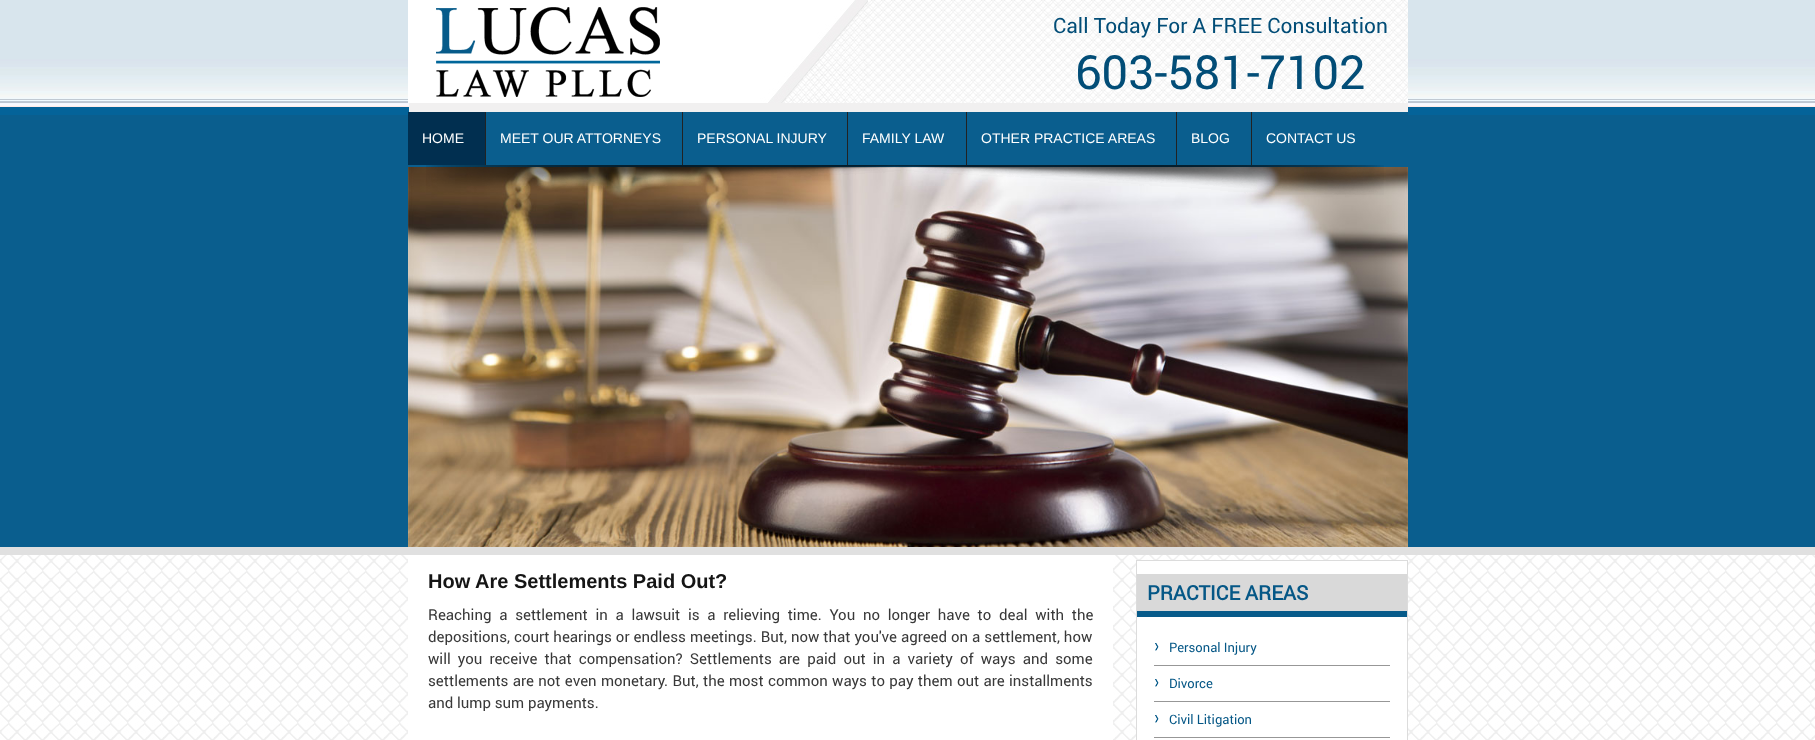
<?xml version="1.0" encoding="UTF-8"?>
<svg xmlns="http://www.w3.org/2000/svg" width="1815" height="740">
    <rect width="100%" height="100%" fill="#FFFFFF"/>
    <image x="0" y="555" width="1815" height="185" href="img_01.png"/>
    <image x="0" y="0" width="1815" height="107" href="img_02.png"/>
    <image x="408" y="0" width="460" height="103" href="img_03.png"/>
    <image x="436" y="7" width="224" height="90" href="img_04.png"/>
    <image x="868" y="0" width="540" height="103" href="img_05.png"/>
    <text x="1053" y="33" font-family="Roboto" font-size="21" fill="#024D77">Call Today For A FREE Consultation</text>
    <text x="1075" y="89" font-family="Roboto" font-size="47" fill="#024D77">603-581-7102</text>
    <rect x="0" y="107" width="1815" height="8" fill="#046399"/>
    <rect x="409" y="103" width="999" height="9" fill="#F1F0F0"/>
    <rect x="486" y="112" width="922" height="3" fill="#0A5E8E"/>
    <rect x="0" y="115" width="1815" height="432" fill="#0A5E8E"/>
    <rect x="408" y="112" width="77" height="53" fill="#012F50"/>
    <text x="422" y="143" font-family="Liberation Sans" font-size="14" fill="#FFFFFF">HOME</text>
    <rect x="485" y="112" width="1" height="53" fill="#222222"/>
    <text x="500" y="143" font-family="Liberation Sans" font-size="14" fill="#FFFFFF">MEET OUR ATTORNEYS</text>
    <rect x="682" y="112" width="1" height="53" fill="#222222"/>
    <text x="697" y="143" font-family="Liberation Sans" font-size="14" fill="#FFFFFF">PERSONAL INJURY</text>
    <rect x="847" y="112" width="1" height="53" fill="#222222"/>
    <text x="862" y="143" font-family="Liberation Sans" font-size="14" fill="#FFFFFF">FAMILY LAW</text>
    <rect x="966" y="112" width="1" height="53" fill="#222222"/>
    <text x="981" y="143" font-family="Liberation Sans" font-size="14" fill="#FFFFFF">OTHER PRACTICE AREAS</text>
    <rect x="1176" y="112" width="1" height="53" fill="#222222"/>
    <text x="1191" y="143" font-family="Liberation Sans" font-size="14" fill="#FFFFFF">BLOG</text>
    <rect x="1251" y="112" width="1" height="53" fill="#222222"/>
    <text x="1266" y="143" font-family="Liberation Sans" font-size="14" fill="#FFFFFF">CONTACT US</text>
    <image x="408" y="167" width="1000" height="380" href="img_07.png"/>
    <image x="426" y="165" width="958" height="30" href="img_06.png"/>
    <rect x="0" y="547" width="1815" height="8" fill="#E0E0E0"/>
    <rect x="408" y="555" width="705" height="185" fill="#FFFFFF"/>
    <text x="428" y="588" font-family="Liberation Sans" font-size="20" font-weight="700" fill="#151515">How Are Settlements Paid Out?</text>
    <text font-family="Roboto" font-size="15" fill="#393939">
        <tspan x="428" y="620" word-spacing="4">Reaching a settlement in a lawsuit is a relieving time. You no longer have to deal with the</tspan>
        <tspan x="428" y="642" word-spacing="0.25">depositions, court hearings or endless meetings. But, now that you've agreed on a settlement, how</tspan>
        <tspan x="428" y="664" word-spacing="3.4">will you receive that compensation? Settlements are paid out in a variety of ways and some</tspan>
        <tspan x="428" y="686" word-spacing="0.6">settlements are not even monetary. But, the most common ways to pay them out are installments</tspan>
        <tspan x="428" y="708">and lump sum payments.</tspan>
    </text>
    <rect x="1136.5" y="560.5" width="271" height="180" fill="#FFFFFF" stroke="#DCDCDC"/>
    <rect x="1137" y="574" width="270" height="37" fill="#D9D9D9"/>
    <rect x="1137" y="611" width="270" height="6" fill="#075B8A"/>
    <text x="1147" y="600" font-family="Roboto" font-size="20" font-weight="700" fill="#055786">PRACTICE AREAS</text>
    <rect x="1154" y="665" width="236" height="1" fill="#979797"/>
    <image x="1155" y="643" width="4" height="8" href="img_08.png"/>
    <text x="1169" y="652" font-family="Roboto" font-size="13" fill="#055786">Personal Injury</text>
    <rect x="1154" y="701" width="236" height="1" fill="#979797"/>
    <image x="1155" y="679" width="4" height="8" href="img_08.png"/>
    <text x="1169" y="688" font-family="Roboto" font-size="13" fill="#055786">Divorce</text>
    <rect x="1154" y="737" width="236" height="1" fill="#979797"/>
    <image x="1155" y="715" width="4" height="8" href="img_08.png"/>
    <text x="1169" y="724" font-family="Roboto" font-size="13" fill="#055786">Civil Litigation</text>
</svg>
